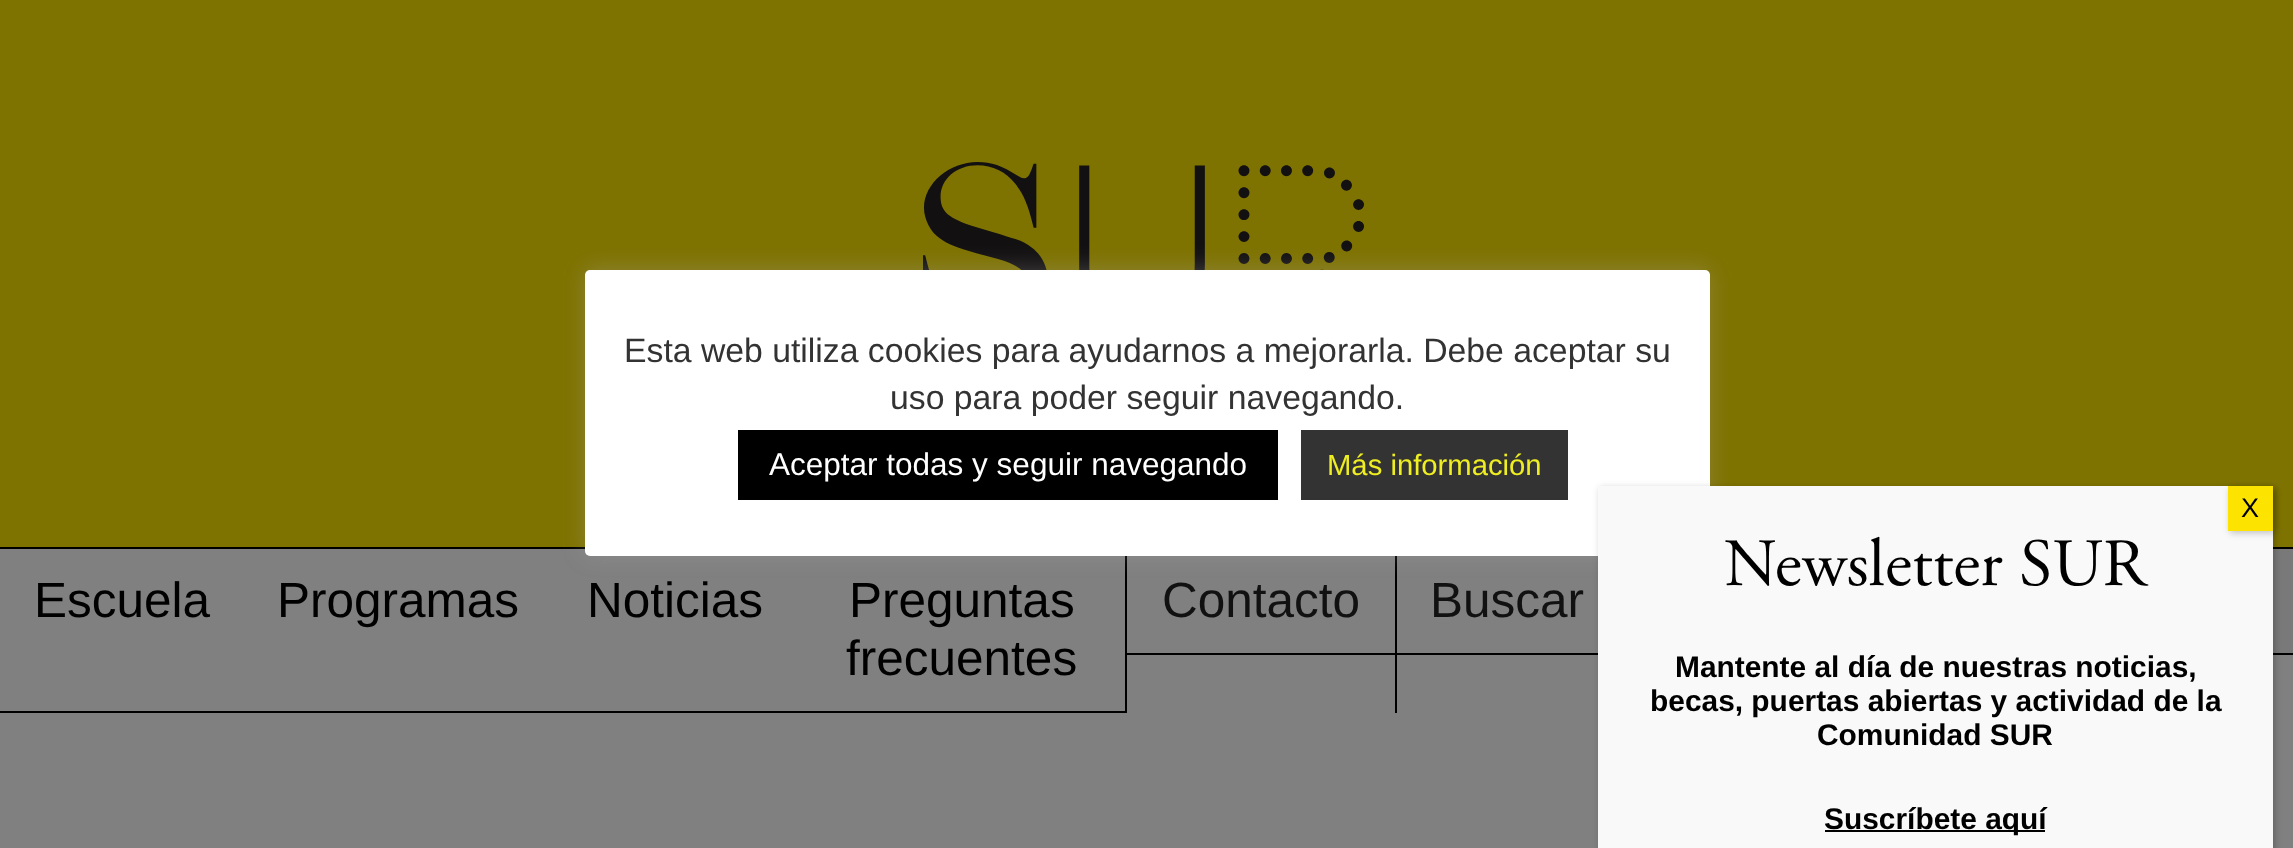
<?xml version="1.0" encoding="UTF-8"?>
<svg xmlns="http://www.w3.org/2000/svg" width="2293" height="848">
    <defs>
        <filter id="blur1" x="-50%" y="-200%" width="200%" height="500%"><feGaussianBlur stdDeviation="11"/></filter>
        <filter id="blur2" x="-50%" y="-200%" width="200%" height="500%"><feGaussianBlur stdDeviation="3.5"/></filter>
    </defs>
    <rect width="100%" height="100%" fill="#808080"/>
    <rect x="0" y="0" width="2293" height="547" fill="#7E7200"/>
    <rect x="0" y="547" width="2293" height="2" fill="#000000"/>
    <image x="923" y="162" width="442" height="108" href="img_01.png"/>
    <rect x="1125" y="549" width="2" height="164" fill="#000000"/>
    <rect x="1395" y="549" width="2" height="164" fill="#000000"/>
    <rect x="585" y="268" width="1125" height="286" rx="5" fill="#ACABAB" fill-opacity="0.3" filter="url(#blur1)"/>
    <rect x="585" y="270" width="1125" height="286" rx="5" fill="#FFFFFF"/>
    <text x="624" y="362" font-family="Liberation Sans" font-size="33.75" fill="#333333">Esta web utiliza cookies para ayudarnos a mejorarla. Debe aceptar su</text>
    <text x="890" y="409" font-family="Liberation Sans" font-size="33.75" fill="#333333">uso para poder seguir navegando.</text>
    <rect x="738" y="430" width="540" height="70" fill="#000000"/>
    <text x="769" y="475" font-family="Liberation Sans" font-size="31.5" fill="#FFFFFF">Aceptar todas y seguir navegando</text>
    <rect x="1301" y="430" width="267" height="70" fill="#333333"/>
    <text x="1327" y="475" font-family="Liberation Sans" font-size="29.25" fill="#EEEE22">Más información</text>
    <rect x="0" y="711" width="1125" height="2" fill="#000000"/>
    <text x="34" y="617" font-family="Liberation Sans" font-size="49.5" fill="#000000">Escuela</text>
    <text x="277" y="617" font-family="Liberation Sans" font-size="49.5" fill="#000000">Programas</text>
    <text x="587" y="617" font-family="Liberation Sans" font-size="49.5" fill="#000000">Noticias</text>
    <text x="849" y="617" font-family="Liberation Sans" font-size="49.5" fill="#000000">Preguntas</text>
    <text x="846" y="675" font-family="Liberation Sans" font-size="49.5" fill="#000000">frecuentes</text>
    <rect x="1127" y="653" width="268" height="2" fill="#000000"/>
    <text x="1162" y="617" font-family="Liberation Sans" font-size="49.5" fill="#111111">Contacto</text>
    <rect x="1397" y="653" width="201" height="2" fill="#000000"/>
    <text x="1430" y="617" font-family="Liberation Sans" font-size="49.5" fill="#111111">Buscar</text>
    <rect x="2273" y="549" width="20" height="104" fill="#797979"/>
    <rect x="2273" y="653" width="20" height="2" fill="#000000"/>
    <rect x="1600" y="488" width="675" height="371" fill="#020202" fill-opacity="0.23" filter="url(#blur2)"/>
    <rect x="1598" y="486" width="675" height="362" fill="#F9F9F9"/>
    <rect x="2230" y="488" width="45" height="45" fill="#020202" fill-opacity="0.23" filter="url(#blur2)"/>
    <rect x="2228" y="486" width="45" height="45" fill="#FCE300"/>
    <text x="2241" y="517" font-family="Liberation Sans" font-size="27" fill="#000000">X</text>
    <text x="1724" y="585" font-family="Adobe Garamond" font-size="67.5" fill="#000000">Newsletter SUR</text>
    <text x="1675" y="677" font-family="Liberation Sans" font-size="29.9" font-weight="700" fill="#000000">Mantente al día de nuestras noticias,</text>
    <text x="1650" y="711" font-family="Liberation Sans" font-size="29.9" font-weight="700" fill="#000000">becas, puertas abiertas y actividad de la</text>
    <text x="1817" y="745" font-family="Liberation Sans" font-size="29.9" font-weight="700" fill="#000000">Comunidad SUR</text>
    <rect x="1825" y="830" width="220" height="2" fill="#000000"/>
    <text x="1824" y="829" font-family="Liberation Sans" font-size="29.9" font-weight="700" fill="#000000">Suscríbete aquí</text>
</svg>
